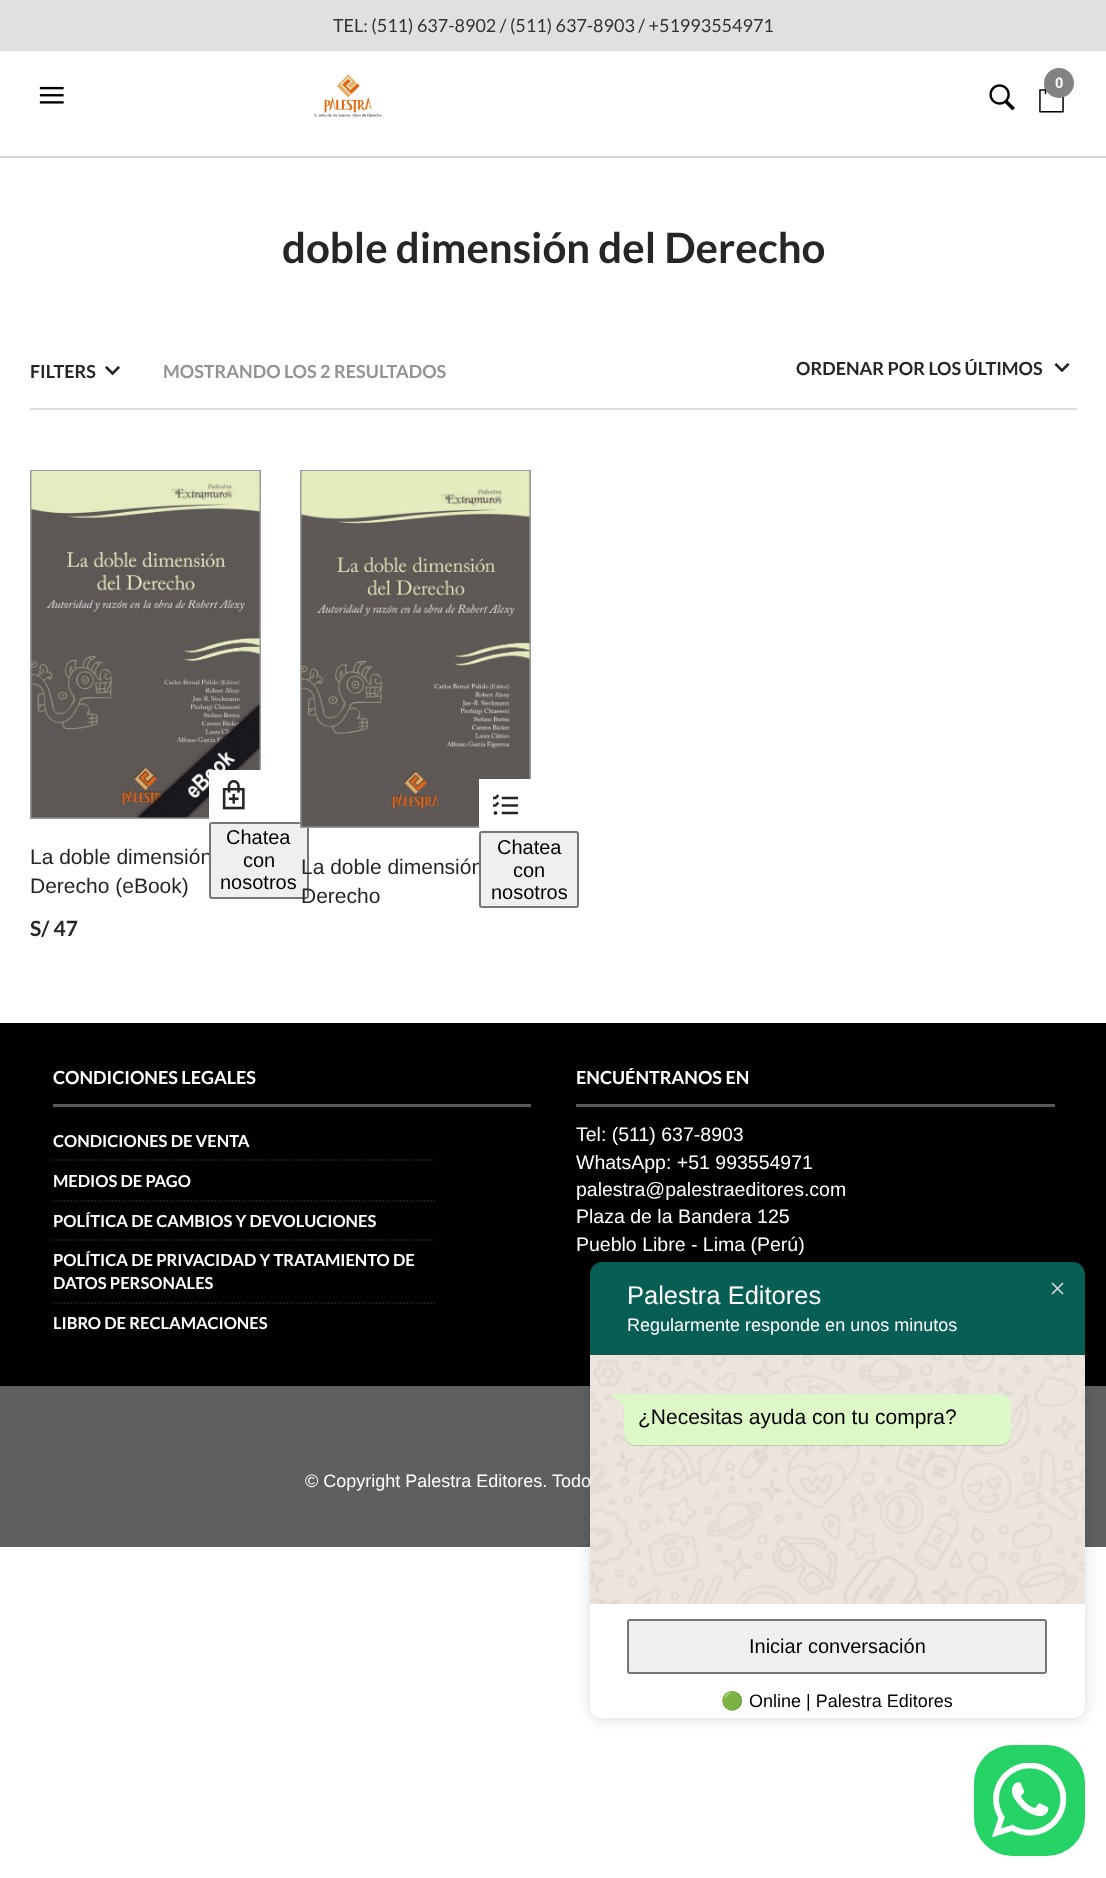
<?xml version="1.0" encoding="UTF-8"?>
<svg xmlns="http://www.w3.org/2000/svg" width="1106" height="1878">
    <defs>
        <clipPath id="clip1"><rect x="0" y="1068" width="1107" height="318"/></clipPath>
        <filter id="blur1" x="-50%" y="-200%" width="200%" height="500%"><feGaussianBlur stdDeviation="7"/></filter>
        <filter id="blur2" x="-50%" y="-200%" width="200%" height="500%"><feGaussianBlur stdDeviation="0.5"/></filter>
    </defs>
    <rect width="100%" height="100%" fill="#FFFFFF"/>
    <rect x="0" y="156" width="1106" height="2" fill="#D2D2D2"/>
    <rect x="0" y="0" width="1106" height="51" fill="#E0E0E0"/>
    <text x="333" y="32" font-family="Lato" font-size="18" fill="#333333">TEL: (511) 637-8902 / (511) 637-8903 / +51993554971</text>
    <image x="314" y="74" width="68" height="43" href="img_01.png"/>
    <image x="989" y="84" width="26" height="27" href="img_02.png"/>
    <image x="1039" y="86" width="25" height="27" href="img_03.png"/>
    <circle cx="1059" cy="83" r="15" fill="#828282"/>
    <text x="1055" y="88" font-family="Liberation Sans" font-size="15" font-weight="700" fill="#FFFFFF">0</text>
    <image x="39" y="86" width="25" height="18" href="img_04.png"/>
    <text x="282" y="263" font-family="Lato" font-size="42" font-weight="700" fill="#262626">doble dimensión del Derecho</text>
    <text x="30" y="378" font-family="Lato" font-size="18" font-weight="700" fill="#262626">FILTERS</text>
    <image x="105" y="366" width="15" height="10" href="img_05.png"/>
    <text x="163" y="378" font-family="Lato" font-size="18" font-weight="700" fill="#939393">MOSTRANDO LOS 2 RESULTADOS</text>
    <image x="1054" y="363" width="16" height="10" href="img_06.png"/>
    <text x="796" y="375" font-family="Lato" font-size="18" font-weight="700" fill="#262626">ORDENAR POR LOS ÚLTIMOS</text>
    <rect x="30" y="408" width="1047" height="2" fill="#DEDEDE"/>
    <text font-family="Liberation Sans" font-size="21" fill="#262626">
        <tspan x="30" y="864">La doble dimensión</tspan>
        <tspan x="30" y="893">Derecho (eBook)</tspan>
    </text>
    <rect x="31" y="471" width="229" height="347" fill="none" stroke="#9A9A9A" stroke-width="2"/>
    <image x="31" y="471" width="229" height="347" href="img_07.png"/>
    <rect x="209" y="770" width="52" height="49" fill="#FFFFFF"/>
    <image x="222" y="780" width="23" height="30" href="img_08.png"/>
    <rect x="210" y="823" width="98" height="75" rx="2" fill="#EFEFEF" stroke="#767676" stroke-width="2"/>
    <text x="226" y="844" font-family="Liberation Sans" font-size="20" fill="#000000">Chatea</text>
    <text x="243" y="867" font-family="Liberation Sans" font-size="20" fill="#000000">con</text>
    <text x="220" y="889" font-family="Liberation Sans" font-size="20" fill="#000000">nosotros</text>
    <text x="30" y="936" font-family="Lato" font-size="21" font-weight="700" fill="#262626">S/ 47</text>
    <text font-family="Liberation Sans" font-size="21" fill="#262626">
        <tspan x="301" y="874">La doble dimensión</tspan>
        <tspan x="301" y="903">Derecho</tspan>
    </text>
    <rect x="301" y="471" width="229" height="356" fill="none" stroke="#9A9A9A" stroke-width="2"/>
    <image x="301" y="471" width="229" height="356" href="img_09.png"/>
    <rect x="479" y="779" width="52" height="49" fill="#FFFFFF"/>
    <image x="493" y="794" width="25" height="21" href="img_10.png"/>
    <rect x="480" y="832" width="98" height="75" rx="2" fill="#EFEFEF" stroke="#767676" stroke-width="2"/>
    <text x="497" y="854" font-family="Liberation Sans" font-size="20" fill="#000000">Chatea</text>
    <text x="513" y="877" font-family="Liberation Sans" font-size="20" fill="#000000">con</text>
    <text x="491" y="899" font-family="Liberation Sans" font-size="20" fill="#000000">nosotros</text>
    <rect x="0" y="1023" width="1106" height="363" fill="#000000"/>
    <rect x="53" y="1104" width="478" height="3" fill="#595959"/>
    <text x="53" y="1084" font-family="Lato" font-size="18" font-weight="700" fill="#FFFFFF">CONDICIONES LEGALES</text>
    <path d="M 52.5 1160 H 435" fill="none" stroke="#262626" stroke-width="1.5" stroke-dasharray="1.5 1.5"/>
    <text x="53" y="1147" font-family="Lato" font-size="16.5" font-weight="700" fill="#FFFFFF">CONDICIONES DE VENTA</text>
    <path d="M 52.5 1201 H 435" fill="none" stroke="#262626" stroke-width="1.5" stroke-dasharray="1.5 1.5"/>
    <text x="53" y="1187" font-family="Lato" font-size="16.5" font-weight="700" fill="#FFFFFF">MEDIOS DE PAGO</text>
    <path d="M 52.5 1240 H 435" fill="none" stroke="#262626" stroke-width="1.5" stroke-dasharray="1.5 1.5"/>
    <text x="53" y="1227" font-family="Lato" font-size="16.5" font-weight="700" fill="#FFFFFF">POLÍTICA DE CAMBIOS Y DEVOLUCIONES</text>
    <path d="M 52.5 1303 H 435" fill="none" stroke="#262626" stroke-width="1.5" stroke-dasharray="1.5 1.5"/>
    <text font-family="Lato" font-size="16.5" font-weight="700" fill="#FFFFFF">
        <tspan x="53" y="1266">POLÍTICA DE PRIVACIDAD Y TRATAMIENTO DE</tspan>
        <tspan x="53" y="1289">DATOS PERSONALES</tspan>
    </text>
    <text x="53" y="1329" font-family="Lato" font-size="16.5" font-weight="700" fill="#FFFFFF">LIBRO DE RECLAMACIONES</text>
    <rect x="576" y="1104" width="479" height="3" fill="#595959"/>
    <g clip-path="url(#clip1)">
        <text x="576" y="1084" font-family="Lato" font-size="18" font-weight="700" fill="#FFFFFF">ENCUÉNTRANOS EN</text>
    </g>
    <text font-family="Liberation Sans" font-size="19.5" fill="#FFFFFF">
        <tspan x="576" y="1141">Tel: (511) 637-8903</tspan>
        <tspan x="576" y="1169">WhatsApp: +51 993554971</tspan>
        <tspan x="576" y="1196">palestra@palestraeditores.com</tspan>
        <tspan x="576" y="1223">Plaza de la Bandera 125</tspan>
        <tspan x="576" y="1251">Pueblo Libre - Lima (Perú)</tspan>
    </text>
    <rect x="0" y="1386" width="1106" height="161" fill="#5F5F5F"/>
    <text x="305" y="1487" font-family="Liberation Sans" font-size="18" fill="#FFFFFF">© Copyright Palestra Editores. Todo</text>
    <rect x="590" y="1263" width="495" height="456" rx="12" fill="#000000" fill-opacity="0.14" filter="url(#blur1)"/>
    <path d="M 602 1262 H 1073 C 1079.5 1262 1085 1267.5 1085 1274 V 1356 H 590 V 1274 C 590 1267.5 595.5 1262 602 1262 Z" fill="#075E54"/>
    <text x="627" y="1304" font-family="Liberation Sans" font-size="25.5" fill="#FFFFFF">Palestra Editores</text>
    <text x="627" y="1331" font-family="Liberation Sans" font-size="18" fill="#FFFFFF">Regularmente responde en unos minutos</text>
    <rect x="590" y="1355" width="495" height="249" fill="#ECE5DD"/>
    <image x="589" y="1355" width="496" height="249" href="img_11.png"/>
    <rect x="624" y="1395" width="387" height="51" rx="11" fill="#000000" fill-opacity="0.14" filter="url(#blur2)"/>
    <path d="M 624 1394 H 1000 C 1006 1394 1011 1399 1011 1405 V 1434 C 1011 1440 1006 1445 1000 1445 H 635 C 629 1445 624 1440 624 1434 Z" fill="#DCF8C6"/>
    <path d="M 612 1394.5 L 625 1407.5 V 1394 H 612 Z" fill="#DCF8C6"/>
    <text x="638" y="1424" font-family="Liberation Sans" font-size="21" fill="#000000">¿Necesitas ayuda con tu compra?</text>
    <rect x="590" y="1604" width="495" height="82" fill="#FFFFFF"/>
    <rect x="628" y="1620" width="418" height="53" rx="2" fill="#EFEFEF" stroke="#767676" stroke-width="2"/>
    <text x="749" y="1653" font-family="Liberation Sans" font-size="20" fill="#000000">Iniciar conversación</text>
    <path d="M 590 1686 H 1085 V 1706 C 1085 1712.5 1079.5 1718 1073 1718 H 602 C 595.5 1718 590 1712.5 590 1706 Z" fill="#FFFFFF"/>
    <text x="721" y="1707" font-family="Noto Color Emoji" font-size="18" fill="#000000">🟢</text>
    <text x="749" y="1707" font-family="Liberation Sans" font-size="18" fill="#000000">Online | Palestra Editores</text>
    <image x="1051" y="1282" width="13" height="13" href="img_12.png"/>
    <rect x="974" y="1745" width="111" height="111" rx="38" fill="#25D366"/>
    <image x="992" y="1763" width="75" height="75" href="img_13.png"/>
</svg>
